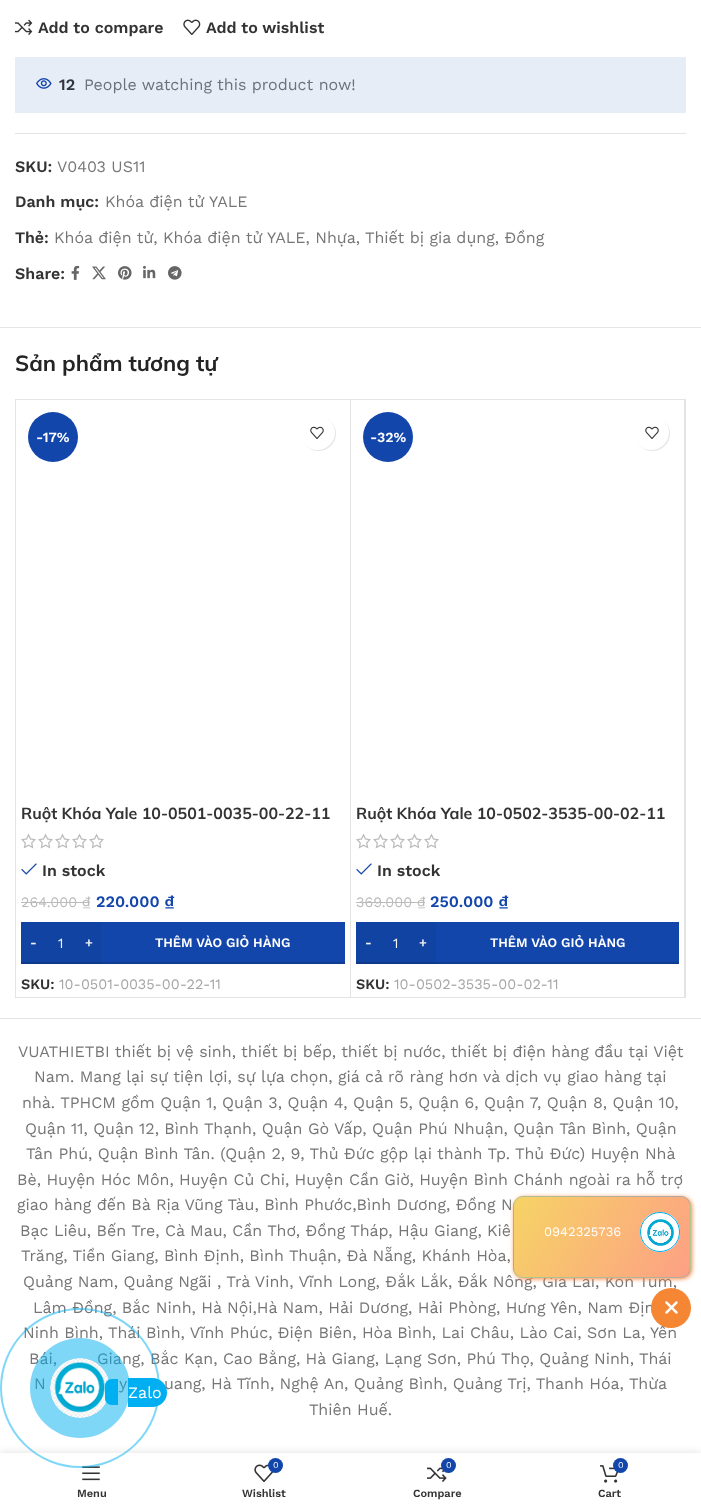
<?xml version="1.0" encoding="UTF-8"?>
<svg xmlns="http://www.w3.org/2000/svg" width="701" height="1508">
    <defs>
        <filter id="blur1" x="-50%" y="-200%" width="200%" height="500%"><feGaussianBlur stdDeviation="0.5"/></filter>
        <filter id="blur2" x="-50%" y="-200%" width="200%" height="500%"><feGaussianBlur stdDeviation="2"/></filter>
        <clipPath id="clip1"><rect x="513" y="1196" width="178" height="82" rx="10"/></clipPath>
        <linearGradient id="g1" gradientUnits="userSpaceOnUse" x1="519" y1="1109" x2="685" y2="1205"><stop offset="0" stop-color="#F6D365"/><stop offset="1" stop-color="#FDA085"/></linearGradient>
        <linearGradient id="g2" gradientUnits="userSpaceOnUse" x1="343" y1="1189" x2="509" y2="1285"><stop offset="0" stop-color="#F6D365"/><stop offset="1" stop-color="#FDA085"/></linearGradient>
        <linearGradient id="g3" gradientUnits="userSpaceOnUse" x1="519" y1="1189" x2="685" y2="1285"><stop offset="0" stop-color="#F6D365"/><stop offset="1" stop-color="#FDA085"/></linearGradient>
        <linearGradient id="g4" gradientUnits="userSpaceOnUse" x1="695" y1="1189" x2="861" y2="1285"><stop offset="0" stop-color="#F6D365"/><stop offset="1" stop-color="#FDA085"/></linearGradient>
        <linearGradient id="g5" gradientUnits="userSpaceOnUse" x1="519" y1="1269" x2="685" y2="1365"><stop offset="0" stop-color="#F6D365"/><stop offset="1" stop-color="#FDA085"/></linearGradient>
        <filter id="blur3" x="-50%" y="-200%" width="200%" height="500%"><feGaussianBlur stdDeviation="4.5"/></filter>
    </defs>
    <rect width="100%" height="100%" fill="#FFFFFF"/>
    <rect x="15" y="57" width="671" height="56" fill="#E7EDF7"/>
    <image x="15" y="19" width="18" height="16" href="img_01.png"/>
    <text x="38" y="33" font-family="Work Sans" font-size="16" font-weight="600" fill="#333333">Add to compare</text>
    <image x="183" y="19" width="18" height="16" href="img_02.png"/>
    <text x="206" y="33" font-family="Work Sans" font-size="16" font-weight="600" fill="#333333">Add to wishlist</text>
    <image x="36" y="78" width="16" height="11" href="img_03.png"/>
    <text x="59" y="90" font-family="Work Sans" font-size="16" font-weight="600" fill="#30353F">12</text>
    <text x="84" y="90" font-family="Work Sans" font-size="16" fill="#6C717B">People watching this product now!</text>
    <rect x="15" y="133" width="671" height="1" fill="#E4E4E4"/>
    <text x="15" y="172" font-family="Work Sans" font-size="16" font-weight="600" fill="#333333">SKU:</text>
    <text x="57" y="172" font-family="Work Sans" font-size="16" fill="#767676">V0403 US11</text>
    <text x="15" y="207" font-family="Work Sans" font-size="16" font-weight="600" fill="#333333">Danh mục:</text>
    <text x="105" y="207" font-family="Work Sans" font-size="16" fill="#767676">Khóa điện tử YALE</text>
    <text x="15" y="243" font-family="Work Sans" font-size="16" font-weight="600" fill="#333333">Thẻ:</text>
    <text x="54" y="243" font-family="Work Sans" font-size="16" fill="#767676">Khóa điện tử, Khóa điện tử YALE, Nhựa, Thiết bị gia dụng, Đồng</text>
    <text x="15" y="279" font-family="Work Sans" font-size="16" font-weight="600" fill="#333333">Share:</text>
    <image x="71" y="265" width="9" height="15" href="img_04.png"/>
    <image x="92" y="266" width="14" height="14" href="img_05.png"/>
    <image x="118" y="266" width="14" height="14" href="img_06.png"/>
    <image x="143" y="265" width="13" height="14" href="img_07.png"/>
    <image x="168" y="266" width="14" height="14" href="img_08.png"/>
    <rect x="0" y="327" width="701" height="1" fill="#E4E4E4"/>
    <text x="15" y="371" font-family="Mulish" font-size="22" font-weight="700" fill="#242424">Sản phẩm tương tự</text>
    <rect x="15.5" y="399.5" width="670" height="598" fill="none" stroke="#E4E4E4"/>
    <rect x="350" y="400" width="1" height="597" fill="#E4E4E4"/>
    <circle cx="53" cy="437" r="25" fill="#1246AB"/>
    <text x="36" y="442" font-family="Work Sans" font-size="14" font-weight="600" fill="#FFFFFF">-17%</text>
    <rect x="301" y="416" width="35" height="35" rx="17.5" fill="#000000" fill-opacity="0.1" filter="url(#blur1)"/>
    <circle cx="317.5" cy="432.5" r="17.5" fill="#FFFFFF"/>
    <image x="310" y="426" width="14" height="13" href="img_09.png"/>
    <text x="21" y="819" font-family="Mulish" font-size="16" font-weight="700" fill="#333333">Ruột Khóa Yale 10-0501-0035-00-22-11</text>
    <image x="21" y="833" width="83" height="16" href="img_10.png"/>
    <image x="21" y="863" width="16" height="12" href="img_11.png"/>
    <text x="42" y="876" font-family="Work Sans" font-size="16" font-weight="600" fill="#333333">In stock</text>
    <text x="21" y="907" font-family="Work Sans" font-size="14.4" fill="#BBBBBB">264.000 ₫</text>
    <rect x="21" y="902" width="69" height="1" fill="#BBBBBB"/>
    <text x="96" y="907" font-family="Work Sans" font-size="16" font-weight="600" fill="#1246AB">220.000 ₫</text>
    <rect x="21" y="922" width="80" height="40" fill="#1143A2"/>
    <text x="30" y="947" font-family="Work Sans" font-size="13" font-weight="600" fill="#F2F2F2">-</text>
    <rect x="21" y="962" width="80" height="2" fill="#0E398A"/>
    <text x="58" y="948" font-family="Work Sans" font-size="14" fill="#F2F2F2">1</text>
    <text x="85" y="947" font-family="Work Sans" font-size="13" font-weight="600" fill="#F2F2F2">+</text>
    <rect x="101" y="922" width="244" height="40" fill="#1246AB"/>
    <rect x="101" y="962" width="244" height="2" fill="#0F3C91"/>
    <text x="155" y="947" font-family="Work Sans" font-size="13" font-weight="600" fill="#FFFFFF">THÊM VÀO GIỎ HÀNG</text>
    <text x="21" y="989" font-family="Work Sans" font-size="14.4" font-weight="600" fill="#333333">SKU:</text>
    <text x="59" y="989" font-family="Work Sans" font-size="14.4" fill="#A5A5A5">10-0501-0035-00-22-11</text>
    <rect x="684" y="400" width="1" height="597" fill="#E4E4E4"/>
    <circle cx="388" cy="437" r="25" fill="#1246AB"/>
    <text x="370" y="442" font-family="Work Sans" font-size="14" font-weight="600" fill="#FFFFFF">-32%</text>
    <rect x="635" y="416" width="35" height="35" rx="17.5" fill="#000000" fill-opacity="0.1" filter="url(#blur1)"/>
    <circle cx="651.5" cy="432.5" r="17.5" fill="#FFFFFF"/>
    <image x="645" y="426" width="14" height="13" href="img_09.png"/>
    <text x="356" y="819" font-family="Mulish" font-size="16" font-weight="700" fill="#333333">Ruột Khóa Yale 10-0502-3535-00-02-11</text>
    <image x="356" y="833" width="83" height="16" href="img_10.png"/>
    <image x="356" y="863" width="16" height="12" href="img_11.png"/>
    <text x="377" y="876" font-family="Work Sans" font-size="16" font-weight="600" fill="#333333">In stock</text>
    <text x="356" y="907" font-family="Work Sans" font-size="14.4" fill="#BBBBBB">369.000 ₫</text>
    <rect x="356" y="902" width="69" height="1" fill="#BBBBBB"/>
    <text x="430" y="907" font-family="Work Sans" font-size="16" font-weight="600" fill="#1246AB">250.000 ₫</text>
    <rect x="356" y="922" width="80" height="40" fill="#1143A2"/>
    <text x="365" y="947" font-family="Work Sans" font-size="13" font-weight="600" fill="#F2F2F2">-</text>
    <rect x="356" y="962" width="80" height="2" fill="#0E398A"/>
    <text x="393" y="948" font-family="Work Sans" font-size="14" fill="#F2F2F2">1</text>
    <text x="419" y="947" font-family="Work Sans" font-size="13" font-weight="600" fill="#F2F2F2">+</text>
    <rect x="436" y="922" width="243" height="40" fill="#1246AB"/>
    <rect x="436" y="962" width="243" height="2" fill="#0F3C91"/>
    <text x="490" y="947" font-family="Work Sans" font-size="13" font-weight="600" fill="#FFFFFF">THÊM VÀO GIỎ HÀNG</text>
    <text x="356" y="989" font-family="Work Sans" font-size="14.4" font-weight="600" fill="#333333">SKU:</text>
    <text x="394" y="989" font-family="Work Sans" font-size="14.4" fill="#A5A5A5">10-0502-3535-00-02-11</text>
    <rect x="0" y="1018" width="701" height="1" fill="#E4E4E4"/>
    <text x="18" y="1057" font-family="Work Sans" font-size="16" fill="#767676">VUATHIETBI thiết bị vệ sinh, thiết bị bếp, thiết bị nước, thiết bị điện hàng đầu tại Việt</text>
    <text x="34" y="1082" font-family="Work Sans" font-size="16" fill="#767676">Nam. Mang lại sự tiện lợi, sự lựa chọn, giá cả rõ ràng hơn và dịch vụ giao hàng tại</text>
    <text x="22" y="1108" font-family="Work Sans" font-size="16" fill="#767676">nhà. TPHCM gồm Quận 1, Quận 3, Quận 4, Quận 5, Quận 6, Quận 7, Quận 8, Quận 10,</text>
    <text x="25" y="1134" font-family="Work Sans" font-size="16" fill="#767676">Quận 11, Quận 12, Bình Thạnh, Quận Gò Vấp, Quận Phú Nhuận, Quận Tân Bình, Quận</text>
    <text x="26" y="1159" font-family="Work Sans" font-size="16" fill="#767676">Tân Phú, Quận Bình Tân. (Quận 2, 9, Thủ Đức gộp lại thành Tp. Thủ Đức) Huyện Nhà</text>
    <text font-family="Work Sans" font-size="16" fill="#767676">
        <tspan x="17" y="1185">Bè, Huyện Hóc Môn, Huyện Củ Chi, Huyện Cần Giờ, Huyện Bình Chánh ngoài ra hỗ trợ</tspan>
        <tspan x="17" y="1210">giao hàng đến Bà Rịa Vũng Tàu, Bình Phước,Bình Dương, Đồng N</tspan>
    </text>
    <text x="20" y="1236" font-family="Work Sans" font-size="16" fill="#767676">Bạc Liêu, Bến Tre, Cà Mau, Cần Thơ, Đồng Tháp, Hậu Giang, Kiê</text>
    <text x="21" y="1261" font-family="Work Sans" font-size="16" fill="#767676">Trăng, Tiền Giang, Bình Định, Bình Thuận, Đà Nẵng, Khánh Hòa,</text>
    <text x="23" y="1287" font-family="Work Sans" font-size="16" fill="#767676">Quảng Nam, Quảng Ngãi , Trà Vinh, Vĩnh Long, Đắk Lắk, Đắk Nông, Gia Lai, Kon Tum,</text>
    <text x="33" y="1313" font-family="Work Sans" font-size="16" fill="#767676">Lâm Đồng, Bắc Ninh, Hà Nội,Hà Nam, Hải Dương, Hải Phòng, Hưng Yên, Nam Địn</text>
    <text x="23" y="1338" font-family="Work Sans" font-size="16" fill="#767676">Ninh Bình, Thái Bình, Vĩnh Phúc, Điện Biên, Hòa Bình, Lai Châu, Lào Cai, Sơn La, Yên</text>
    <text x="29" y="1364" font-family="Work Sans" font-size="16" fill="#767676">Bái,</text>
    <text x="97" y="1364" font-family="Work Sans" font-size="16" fill="#767676">Giang, Bắc Kạn, Cao Bằng, Hà Giang, Lạng Sơn, Phú Thọ, Quảng Ninh, Thái</text>
    <text x="34" y="1389" font-family="Work Sans" font-size="16" fill="#767676">N</text>
    <text x="119" y="1389" font-family="Work Sans" font-size="16" fill="#767676">y</text>
    <text x="164" y="1389" font-family="Work Sans" font-size="16" fill="#767676">uang, Hà Tĩnh, Nghệ An, Quảng Bình, Quảng Trị, Thanh Hóa, Thừa</text>
    <text x="309" y="1415" font-family="Work Sans" font-size="16" fill="#767676">Thiên Huế.</text>
    <rect x="514" y="1197" width="178" height="82" rx="10" fill="#FB8543" filter="url(#blur2)"/>
    <g clip-path="url(#clip1)">
        <rect x="514" y="1196" width="176" height="1" fill="url(#g1)"/>
        <rect x="513" y="1197" width="1" height="80" fill="url(#g2)"/>
        <rect x="514" y="1197" width="176" height="80" fill="url(#g3)"/>
        <rect x="690" y="1197" width="1" height="80" fill="url(#g4)"/>
        <rect x="514" y="1277" width="176" height="1" fill="url(#g5)"/>
    </g>
    <rect x="513.5" y="1196.5" width="177" height="81" rx="9.5" fill="none" stroke="#00AFEE" stroke-opacity="0.29"/>
    <text x="544" y="1236" font-family="Work Sans" font-size="13" fill="#FFFFFF">0942325736</text>
    <circle cx="660" cy="1232" r="20" fill="#FFFFFF"/>
    <image x="647" y="1219" width="27" height="27" href="img_12.png"/>
    <circle cx="660" cy="1232" r="19.5" fill="none" stroke="#00AFEE"/>
    <circle cx="671" cy="1308" r="20" fill="#F58634"/>
    <image x="665" y="1301" width="13" height="13" href="img_13.png"/>
    <rect x="0" y="1453" width="701" height="55" fill="#000000" fill-opacity="0.12" filter="url(#blur3)"/>
    <rect x="0" y="1453" width="701" height="55" fill="#FFFFFF"/>
    <image x="82" y="1466" width="18" height="15" href="img_15.png"/>
    <circle cx="80" cy="1388" r="79" fill="none" stroke="#00AFF2" stroke-opacity="0.5" stroke-width="2"/>
    <circle cx="80" cy="1388" r="50" fill="#00AFF2" fill-opacity="0.5"/>
    <circle cx="80" cy="1388" r="30" fill="#00AFF2"/>
    <image x="50" y="1358" width="59" height="60" href="img_14.png"/>
    <path d="M 128 1378 H 152.5 C 160.5 1378 167 1384.5 167 1392.5 C 167 1400.5 160.5 1407 152.5 1407 H 128 Z" fill="#00AFF2"/>
    <text x="128" y="1398" font-family="Work Sans" font-size="16" fill="#FFFFFF">Zalo</text>
    <path d="M 111.5 1379 H 118 V 1405 H 111.5 C 108 1405 105 1402 105 1398.5 V 1385.5 C 105 1382 108 1379 111.5 1379 Z" fill="#00AFF2"/>
    <text x="77" y="1497" font-family="Work Sans" font-size="11" font-weight="600" fill="#333333">Menu</text>
    <image x="254" y="1464" width="20" height="18" href="img_16.png"/>
    <circle cx="275.5" cy="1465.5" r="7.5" fill="#1246AB"/>
    <text x="273" y="1468" font-family="Work Sans" font-size="9" fill="#FFFFFF">0</text>
    <text x="242" y="1497" font-family="Work Sans" font-size="11" font-weight="600" fill="#333333">Wishlist</text>
    <image x="427" y="1467" width="20" height="15" href="img_17.png"/>
    <circle cx="448.5" cy="1465.5" r="7.5" fill="#1246AB"/>
    <text x="446" y="1468" font-family="Work Sans" font-size="9" fill="#FFFFFF">0</text>
    <text x="413" y="1497" font-family="Work Sans" font-size="11" font-weight="600" fill="#333333">Compare</text>
    <image x="600" y="1465" width="19" height="18" href="img_18.png"/>
    <circle cx="620.5" cy="1465.5" r="7.5" fill="#1246AB"/>
    <text x="618" y="1468" font-family="Work Sans" font-size="9" fill="#FFFFFF">0</text>
    <text x="598" y="1497" font-family="Work Sans" font-size="11" font-weight="600" fill="#333333">Cart</text>
</svg>
